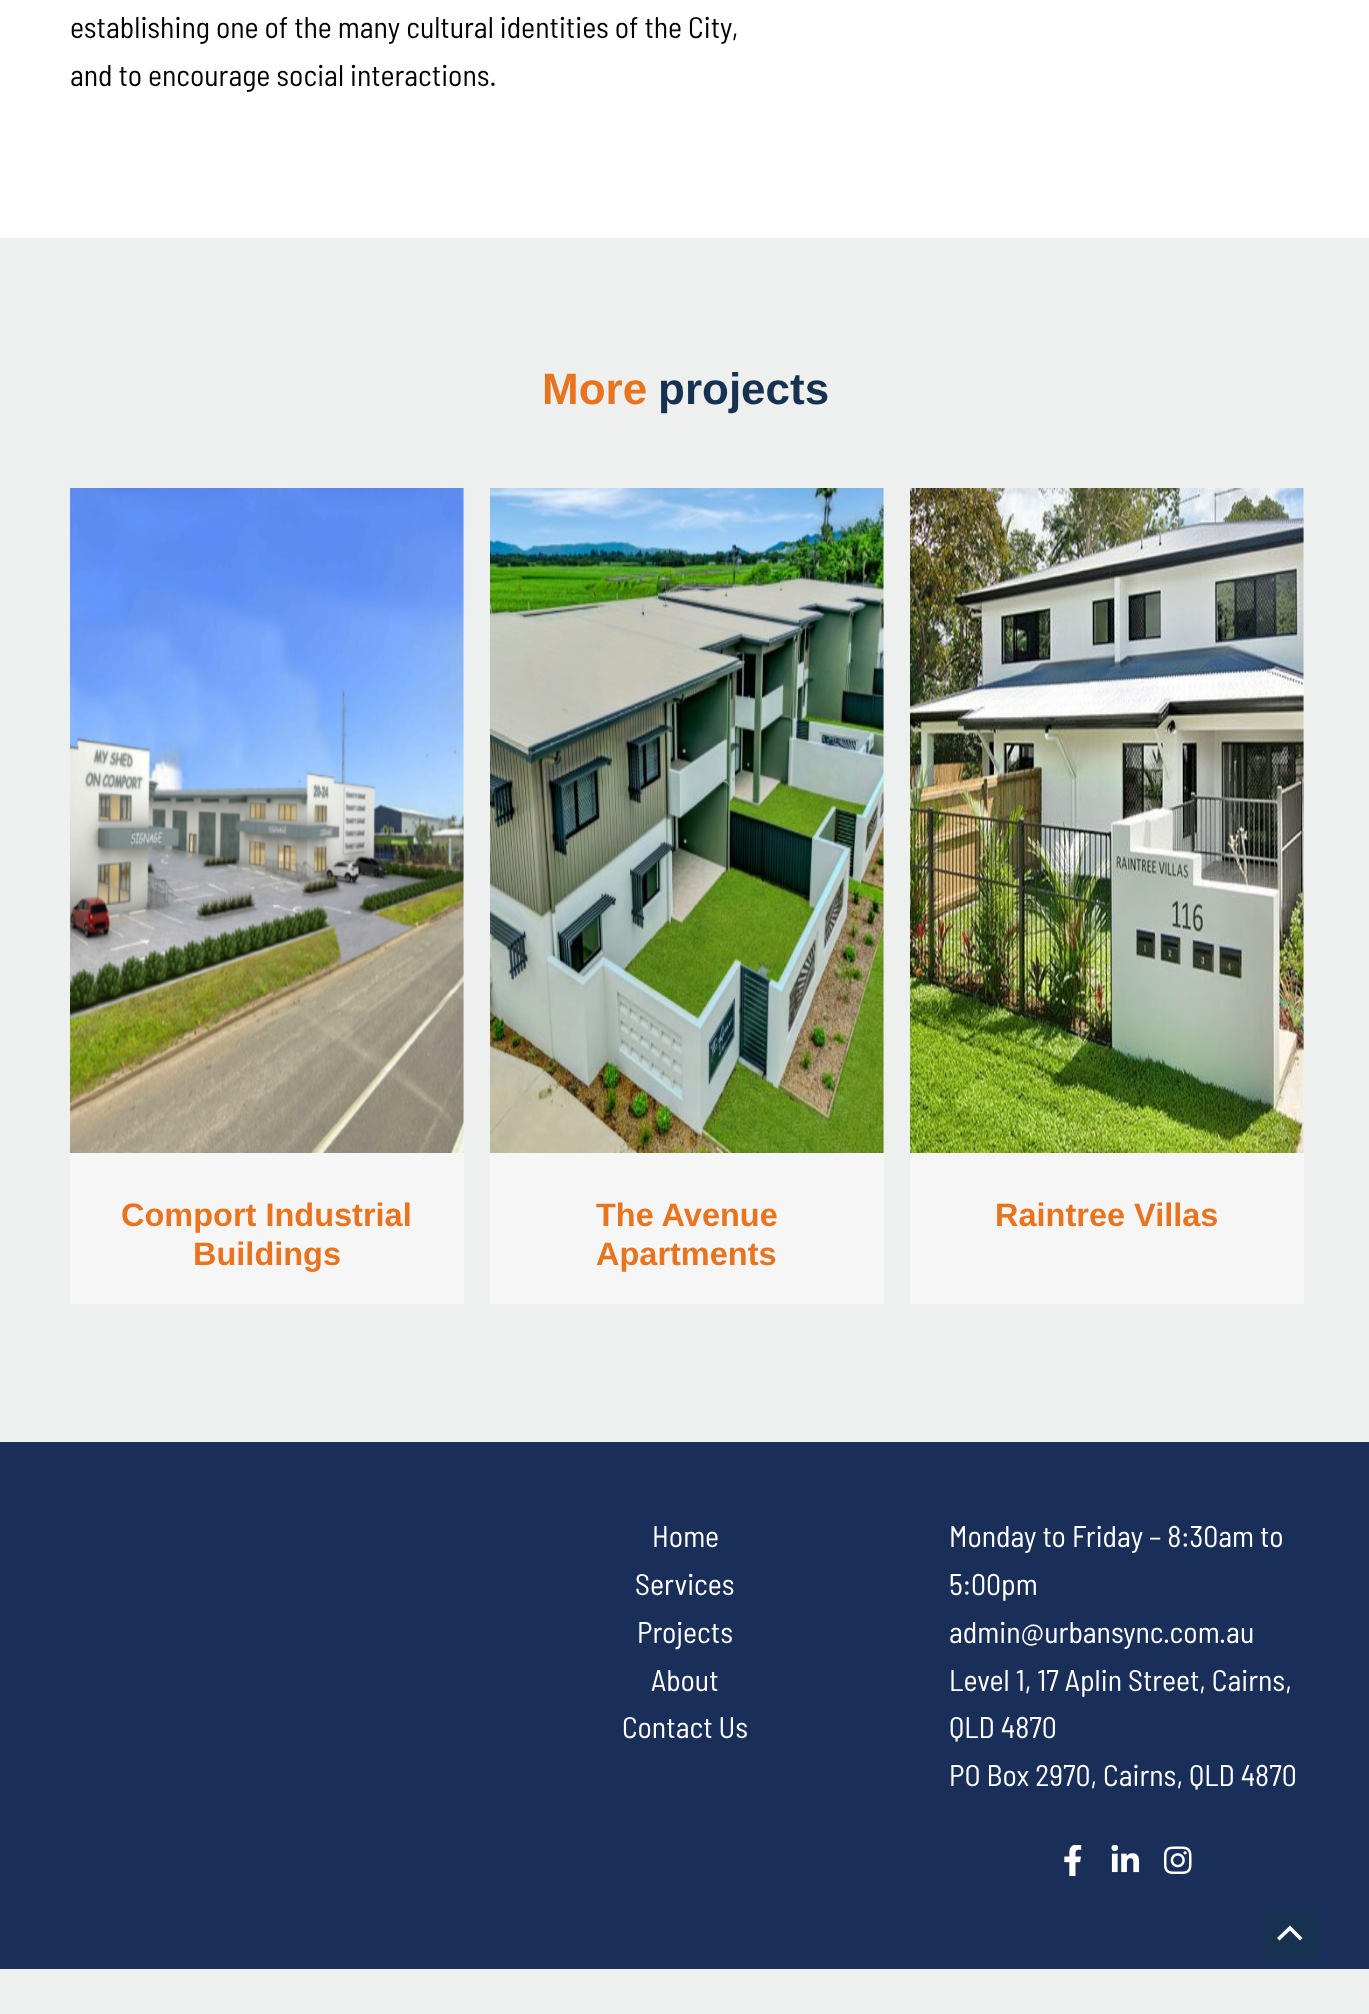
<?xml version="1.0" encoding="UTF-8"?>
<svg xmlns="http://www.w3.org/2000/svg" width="1369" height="2014">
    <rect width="100%" height="100%" fill="#FFFFFF"/>
    <text font-family="Barlow Semi Condensed" font-size="29.85" fill="#000000">
        <tspan x="70" y="38">establishing one of the many cultural identities of the City,</tspan>
        <tspan x="70" y="86">and to encourage social interactions.</tspan>
    </text>
    <rect x="0" y="238" width="1369" height="1202" fill="#EEEFEF"/>
    <text x="542" y="404" font-family="Liberation Sans" font-size="44" font-weight="700" fill="#E9741F">More</text>
    <text x="658" y="404" font-family="Liberation Sans" font-size="44" font-weight="700" fill="#163250">projects</text>
    <rect x="70" y="488" width="394" height="816" fill="#F6F6F6"/>
    <image x="70" y="488" width="394" height="665" href="img_01.png"/>
    <text x="121" y="1226" font-family="Liberation Sans" font-size="32.5" font-weight="700" fill="#E9741F">Comport Industrial</text>
    <text x="193" y="1265" font-family="Liberation Sans" font-size="32.5" font-weight="700" fill="#E9741F">Buildings</text>
    <rect x="490" y="488" width="394" height="816" fill="#F6F6F6"/>
    <image x="490" y="488" width="394" height="665" href="img_02.png"/>
    <text font-family="Liberation Sans" font-size="32.5" font-weight="700" fill="#E9741F">
        <tspan x="596" y="1226">The Avenue</tspan>
        <tspan x="596" y="1265">Apartments</tspan>
    </text>
    <rect x="910" y="488" width="394" height="816" fill="#F6F6F6"/>
    <image x="910" y="488" width="394" height="665" href="img_03.png"/>
    <text x="995" y="1226" font-family="Liberation Sans" font-size="32.5" font-weight="700" fill="#E9741F">Raintree Villas</text>
    <rect x="0" y="1442" width="1369" height="527" fill="#192E59"/>
    <rect x="0" y="1440" width="1369" height="2" fill="#F0F0F0"/>
    <text x="652" y="1547" font-family="Barlow Semi Condensed" font-size="29.85" fill="#FFFFFF">Home</text>
    <text x="635" y="1595" font-family="Barlow Semi Condensed" font-size="29.85" fill="#FFFFFF">Services</text>
    <text x="637" y="1643" font-family="Barlow Semi Condensed" font-size="29.85" fill="#FFFFFF">Projects</text>
    <text x="651" y="1691" font-family="Barlow Semi Condensed" font-size="29.85" fill="#FFFFFF">About</text>
    <text x="622" y="1738" font-family="Barlow Semi Condensed" font-size="29.85" fill="#FFFFFF">Contact Us</text>
    <text font-family="Barlow Semi Condensed" font-size="29.85" fill="#FFFFFF">
        <tspan x="949" y="1547">Monday to Friday – 8:30am to</tspan>
        <tspan x="949" y="1595">5:00pm</tspan>
        <tspan x="949" y="1643">admin@urbansync.com.au</tspan>
        <tspan x="949" y="1691">Level 1, 17 Aplin Street, Cairns,</tspan>
        <tspan x="949" y="1738">QLD 4870</tspan>
        <tspan x="949" y="1786">PO Box 2970, Cairns, QLD 4870</tspan>
    </text>
    <image x="1064" y="1845" width="18" height="31" href="img_04.png"/>
    <image x="1111" y="1845" width="29" height="28" href="img_05.png"/>
    <image x="1163" y="1846" width="29" height="28" href="img_06.png"/>
    <rect x="0" y="1971" width="1369" height="43" fill="#EEEFEF"/>
    <rect x="0" y="1969" width="1369" height="2" fill="#F0F0F0"/>
    <rect x="1264" y="1908" width="54" height="54" rx="4" fill="#163250"/>
    <path d="M 1302.5 1938 L 1290 1925.5 L 1277 1938 L 1279.5 1940.5 L 1290 1930.5 L 1300 1940.5 Z" fill="#FFFFFF"/>
</svg>
